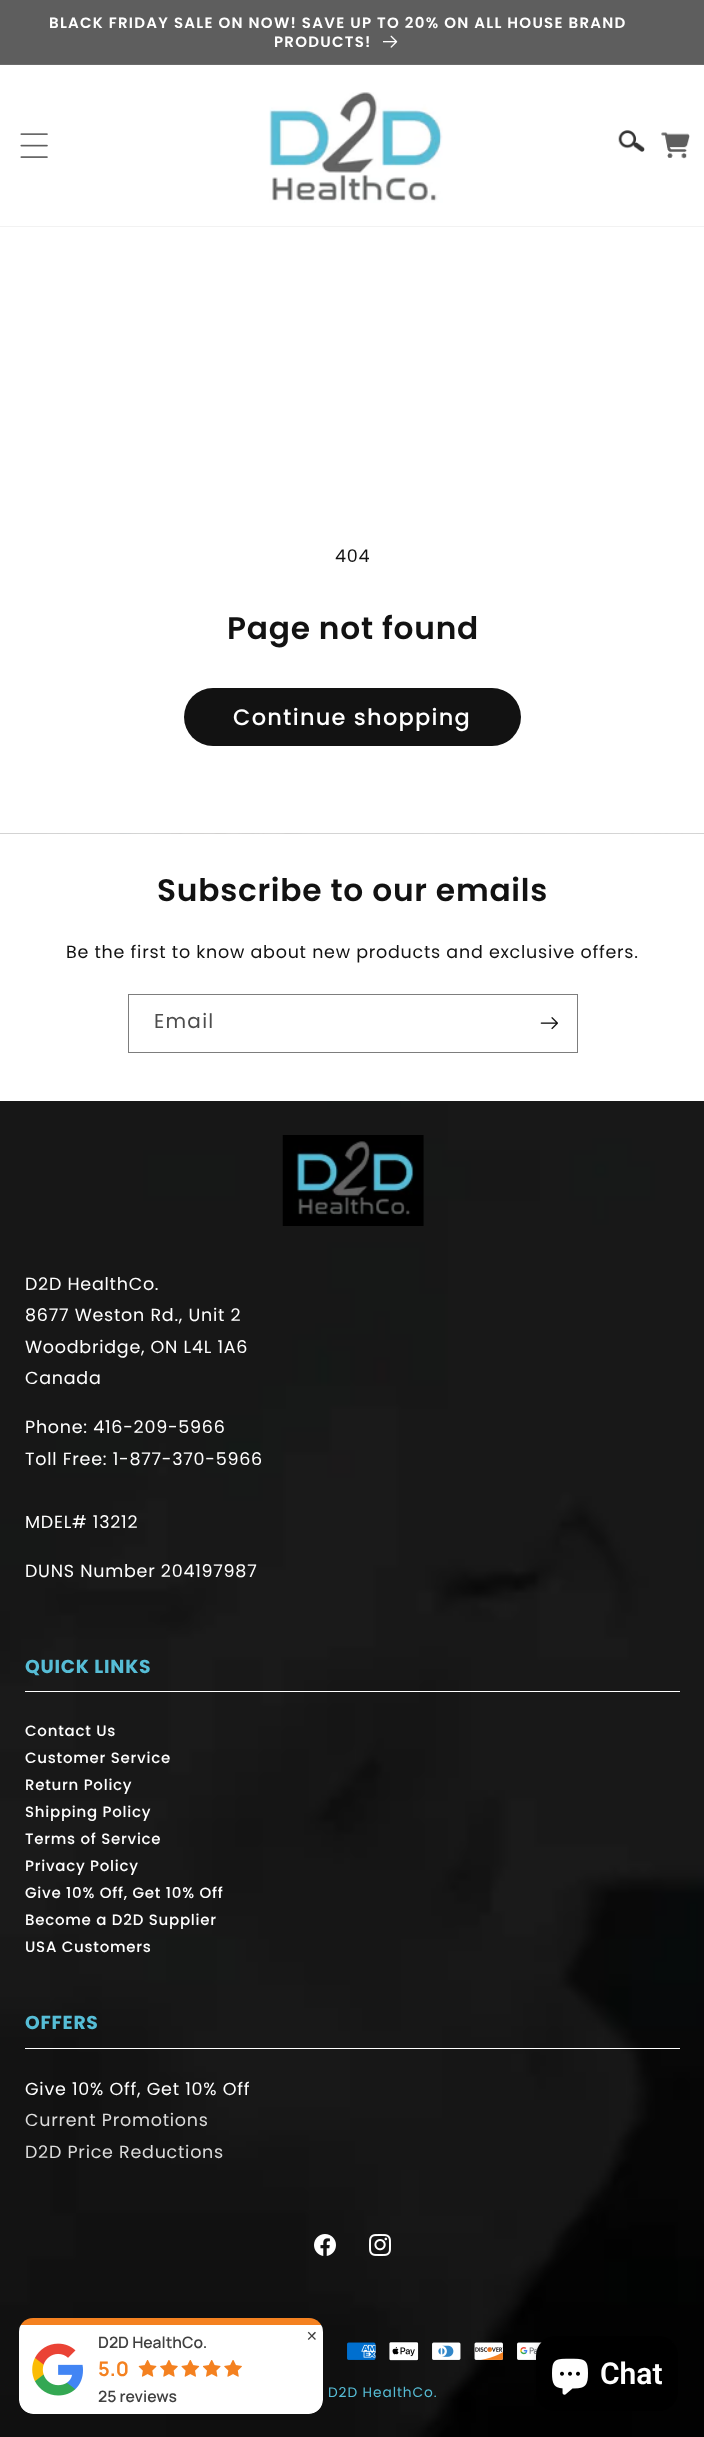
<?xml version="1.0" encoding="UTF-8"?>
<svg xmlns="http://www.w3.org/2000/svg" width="704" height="2437">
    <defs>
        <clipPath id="clip1"><rect x="19" y="2318" width="304" height="96" rx="14"/></clipPath>
        <filter id="blur1" x="-50%" y="-200%" width="200%" height="500%"><feGaussianBlur stdDeviation="3"/></filter>
    </defs>
    <rect width="100%" height="100%" fill="#FFFFFF"/>
    <rect x="0" y="0" width="704" height="64" fill="#5E5E5E"/>
    <rect x="0" y="64" width="704" height="1" fill="#6B6B6B"/>
    <text x="49" y="28" font-family="Poppins" font-size="15" font-weight="600" letter-spacing="1.25" fill="#FFFFFF">BLACK FRIDAY SALE ON NOW! SAVE UP TO 20% ON ALL HOUSE BRAND</text>
    <text x="274" y="47" font-family="Poppins" font-size="15" font-weight="600" letter-spacing="1.25" fill="#FFFFFF">PRODUCTS!</text>
    <image x="383" y="35" width="15" height="13" href="img_01.png"/>
    <rect x="0" y="226" width="704" height="1" fill="#F2F2F2"/>
    <image x="20" y="133" width="28" height="25" href="img_02.png"/>
    <image x="269" y="92" width="174" height="111" href="img_03.png"/>
    <image x="618" y="130" width="27" height="22" href="img_04.png"/>
    <image x="661" y="132" width="29" height="27" href="img_05.png"/>
    <text x="335" y="562" font-family="Poppins" font-size="17.5" letter-spacing="0.75" fill="#121212">404</text>
    <text x="227" y="639" font-family="Poppins" font-size="31.25" font-weight="600" letter-spacing="0.75" fill="#121212">Page not found</text>
    <rect x="184" y="688" width="337" height="58" rx="29" fill="#121212"/>
    <text x="233" y="725" font-family="Poppins" font-size="22.5" font-weight="500" letter-spacing="1.25" fill="#FFFFFF">Continue shopping</text>
    <image x="0" y="833" width="704" height="1" href="img_06.png"/>
    <text x="157" y="901" font-family="Poppins" font-size="31.25" font-weight="600" letter-spacing="0.75" fill="#121212">Subscribe to our emails</text>
    <text x="66" y="958" font-family="Poppins" font-size="17.5" letter-spacing="0.75" fill="#121212">Be the first to know about new products and exclusive offers.</text>
    <rect x="128.5" y="994.5" width="449" height="58" fill="none" stroke="#7D7D7D"/>
    <text x="154" y="1028" font-family="Poppins" font-size="20" letter-spacing="1.25" fill="#4D4D4D">Email</text>
    <image x="540" y="1017" width="18" height="13" href="img_07.png"/>
    <image x="0" y="1101" width="704" height="1336" href="img_08.png"/>
    <image x="282" y="1135" width="142" height="91" href="img_09.png"/>
    <text font-family="Poppins" font-size="17.5" letter-spacing="0.75" fill="#FFFFFF">
        <tspan x="25" y="1290">D2D HealthCo.</tspan>
        <tspan x="25" y="1321">8677 Weston Rd., Unit 2</tspan>
        <tspan x="25" y="1353">Woodbridge, ON L4L 1A6</tspan>
        <tspan x="25" y="1384">Canada</tspan>
    </text>
    <text font-family="Poppins" font-size="17.5" letter-spacing="0.75" fill="#FFFFFF">
        <tspan x="25" y="1433">Phone: 416-209-5966</tspan>
        <tspan x="25" y="1465">Toll Free: 1-877-370-5966</tspan>
    </text>
    <text x="25" y="1528" font-family="Poppins" font-size="17.5" letter-spacing="0.75" fill="#FFFFFF">MDEL# 13212</text>
    <text x="25" y="1577" font-family="Poppins" font-size="17.5" letter-spacing="0.75" fill="#FFFFFF">DUNS Number 204197987</text>
    <rect x="25" y="1691" width="655" height="1" fill="#FFFFFF"/>
    <text x="25" y="1673" font-family="Poppins" font-size="18.75" font-weight="700" letter-spacing="0.75" fill="#56BDD6">QUICK LINKS</text>
    <text font-family="Poppins" font-size="15" font-weight="500" letter-spacing="0.75" fill="#FFFFFF">
        <tspan x="25" y="1736">Contact Us</tspan>
        <tspan x="25" y="1763">Customer Service</tspan>
        <tspan x="25" y="1790">Return Policy</tspan>
        <tspan x="25" y="1817">Shipping Policy</tspan>
        <tspan x="25" y="1844">Terms of Service</tspan>
        <tspan x="25" y="1871">Privacy Policy</tspan>
        <tspan x="25" y="1898">Give 10% Off, Get 10% Off</tspan>
        <tspan x="25" y="1925">Become a D2D Supplier</tspan>
        <tspan x="25" y="1952">USA Customers</tspan>
    </text>
    <rect x="25" y="2048" width="655" height="1" fill="#FFFFFF"/>
    <text x="25" y="2029" font-family="Poppins" font-size="18.75" font-weight="700" letter-spacing="0.75" fill="#56BDD6">OFFERS</text>
    <text x="25" y="2095" font-family="Poppins" font-size="17.5" letter-spacing="0.75" fill="#FFFFFF">Give 10% Off, Get 10% Off</text>
    <text font-family="Poppins" font-size="17.5" letter-spacing="0.75" fill="#DCDCDC">
        <tspan x="25" y="2126">Current Promotions</tspan>
        <tspan x="25" y="2158">D2D Price Reductions</tspan>
    </text>
    <image x="314" y="2234" width="22" height="22" href="img_10.png"/>
    <image x="369" y="2234" width="22" height="22" href="img_11.png"/>
    <image x="347" y="2342" width="29" height="18" href="img_12.png"/>
    <image x="389" y="2341" width="30" height="20" href="img_13.png"/>
    <image x="432" y="2342" width="29" height="18" href="img_14.png"/>
    <image x="474" y="2342" width="29" height="18" href="img_15.png"/>
    <image x="517" y="2342" width="25" height="18" href="img_16.png"/>
    <image x="672" y="2342" width="1" height="1" href="img_17.png"/>
    <text x="328" y="2397" font-family="Poppins" font-size="13.75" letter-spacing="0.9" fill="#56BDD6">D2D HealthCo.</text>
    <g clip-path="url(#clip1)">
        <rect x="19" y="2318" width="304" height="7" fill="#F48120"/>
        <path d="M 19 2325 H 323 V 2400 C 323 2407.5 316.5 2414 309 2414 H 33 C 25.5 2414 19 2407.5 19 2400 Z" fill="#FFFFFF"/>
    </g>
    <image x="32" y="2343" width="51" height="53" href="img_18.png"/>
    <text x="98" y="2348" font-family="Manrope" font-size="15.75" font-weight="600" fill="#404040">D2D HealthCo.</text>
    <text x="98" y="2376" font-family="Manrope" font-size="20" font-weight="700" fill="#F48120">5.0</text>
    <image x="138" y="2360" width="19" height="17" href="img_19.png"/>
    <image x="160" y="2360" width="18" height="17" href="img_20.png"/>
    <image x="181" y="2360" width="19" height="17" href="img_21.png"/>
    <image x="203" y="2360" width="18" height="17" href="img_22.png"/>
    <image x="224" y="2360" width="18" height="17" href="img_23.png"/>
    <text x="98" y="2402" font-family="Manrope" font-size="15.75" font-weight="600" fill="#404040">25 reviews</text>
    <text x="306" y="2341" font-family="DejaVu Sans" font-size="14" fill="#404040">✕</text>
    <rect x="536" y="2336" width="142" height="75" rx="20" fill="#000000" fill-opacity="0.15" filter="url(#blur1)"/>
    <rect x="536" y="2336" width="142" height="75" rx="20" fill="#000000"/>
    <image x="552" y="2358" width="36" height="37" href="img_24.png"/>
    <text x="600" y="2384" font-family="Roboto" font-size="30" font-weight="600" fill="#FFFFFF">Chat</text>
</svg>
